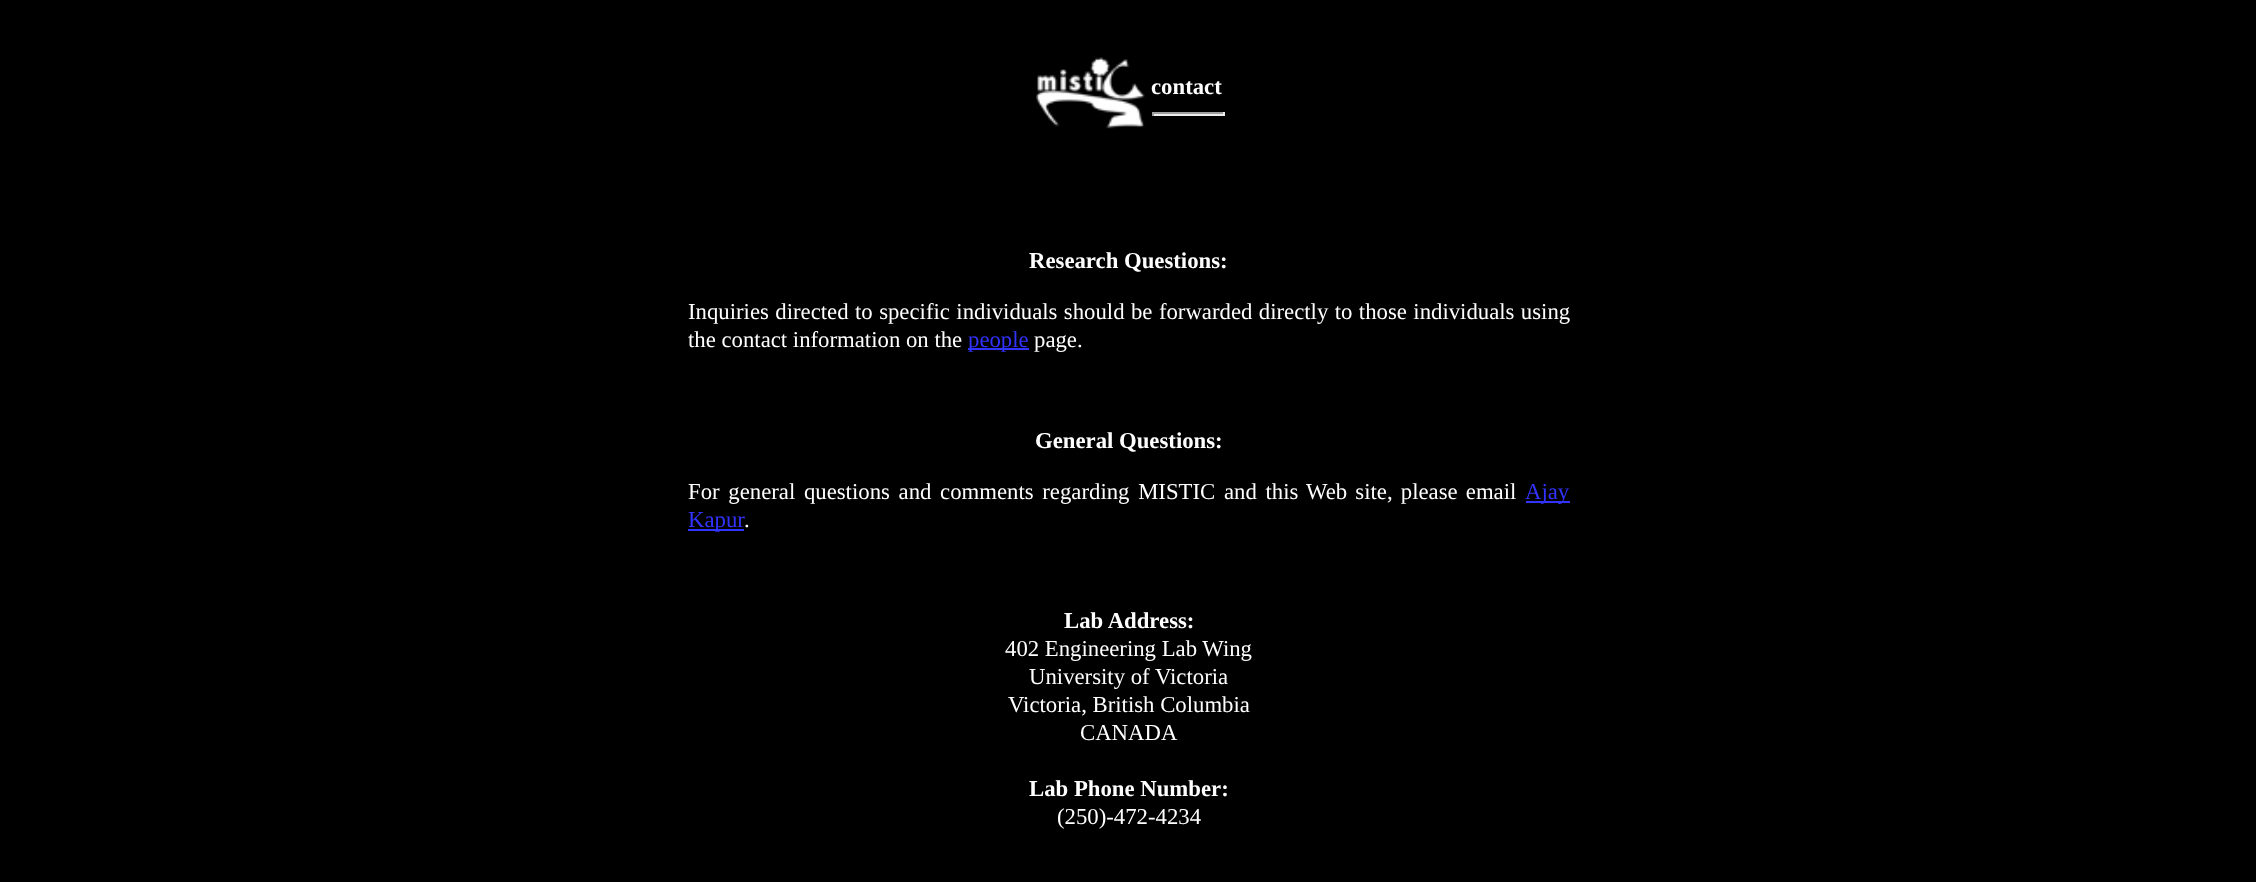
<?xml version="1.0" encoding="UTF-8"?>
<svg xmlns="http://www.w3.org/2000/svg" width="2256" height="882">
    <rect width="100%" height="100%" fill="#000000"/>
    <image x="1036" y="57" width="109" height="72" href="img_01.png"/>
    <text x="1151" y="94" font-family="Liberation Serif" font-size="22.75" font-weight="700" fill="#FFFFFF">contact</text>
    <rect x="1152" y="112" width="73" height="2" fill="#9F9F9F"/>
    <rect x="1223" y="112" width="2" height="4" fill="#EEEEEE"/>
    <rect x="1152" y="114" width="73" height="2" fill="#EEEEEE"/>
    <rect x="1152" y="112" width="2" height="4" fill="#9F9F9F"/>
    <text x="1029" y="268" font-family="Liberation Serif" font-size="22.75" font-weight="700" fill="#FFFFFF">Research Questions:</text>
    <text font-family="Liberation Serif" font-size="22.75" fill="#FFFFFF">
        <tspan x="688" y="319" word-spacing="0.75">Inquiries directed to specific individuals should be forwarded directly to those individuals using</tspan>
        <tspan x="688" y="347">the contact information on the</tspan>
    </text>
    <rect x="968" y="348" width="61" height="2" fill="#3333FF"/>
    <text x="968" y="347" font-family="Liberation Serif" font-size="22.75" fill="#3333FF">people</text>
    <text x="1034" y="347" font-family="Liberation Serif" font-size="22.75" fill="#FFFFFF">page.</text>
    <text x="1035" y="448" font-family="Liberation Serif" font-size="22.75" font-weight="700" fill="#FFFFFF">General Questions:</text>
    <text x="688" y="499" word-spacing="3" font-family="Liberation Serif" font-size="22.75" fill="#FFFFFF">For general questions and comments regarding MISTIC and this</text>
    <text x="1306" y="499" word-spacing="2.5" font-family="Liberation Serif" font-size="22.75" fill="#FFFFFF">Web site, please email</text>
    <rect x="1526" y="501" width="44" height="2" fill="#3333FF"/>
    <text x="1525" y="499" font-family="Liberation Serif" font-size="22.75" fill="#3333FF">Ajay</text>
    <rect x="688" y="529" width="56" height="2" fill="#3333FF"/>
    <text x="688" y="527" font-family="Liberation Serif" font-size="22.75" fill="#3333FF">Kapur</text>
    <text x="744" y="527" font-family="Liberation Serif" font-size="22.75" fill="#FFFFFF">.</text>
    <text x="1064" y="628" font-family="Liberation Serif" font-size="22.75" font-weight="700" fill="#FFFFFF">Lab Address:</text>
    <text x="1005" y="656" font-family="Liberation Serif" font-size="22.75" fill="#FFFFFF">402 Engineering Lab Wing</text>
    <text x="1029" y="684" font-family="Liberation Serif" font-size="22.75" fill="#FFFFFF">University of Victoria</text>
    <text x="1008" y="712" font-family="Liberation Serif" font-size="22.75" fill="#FFFFFF">Victoria, British Columbia</text>
    <text x="1080" y="740" font-family="Liberation Serif" font-size="22.75" fill="#FFFFFF">CANADA</text>
    <text x="1029" y="796" font-family="Liberation Serif" font-size="22.75" font-weight="700" fill="#FFFFFF">Lab Phone Number:</text>
    <text x="1057" y="824" font-family="Liberation Serif" font-size="22.75" fill="#FFFFFF">(250)-472-4234</text>
</svg>
